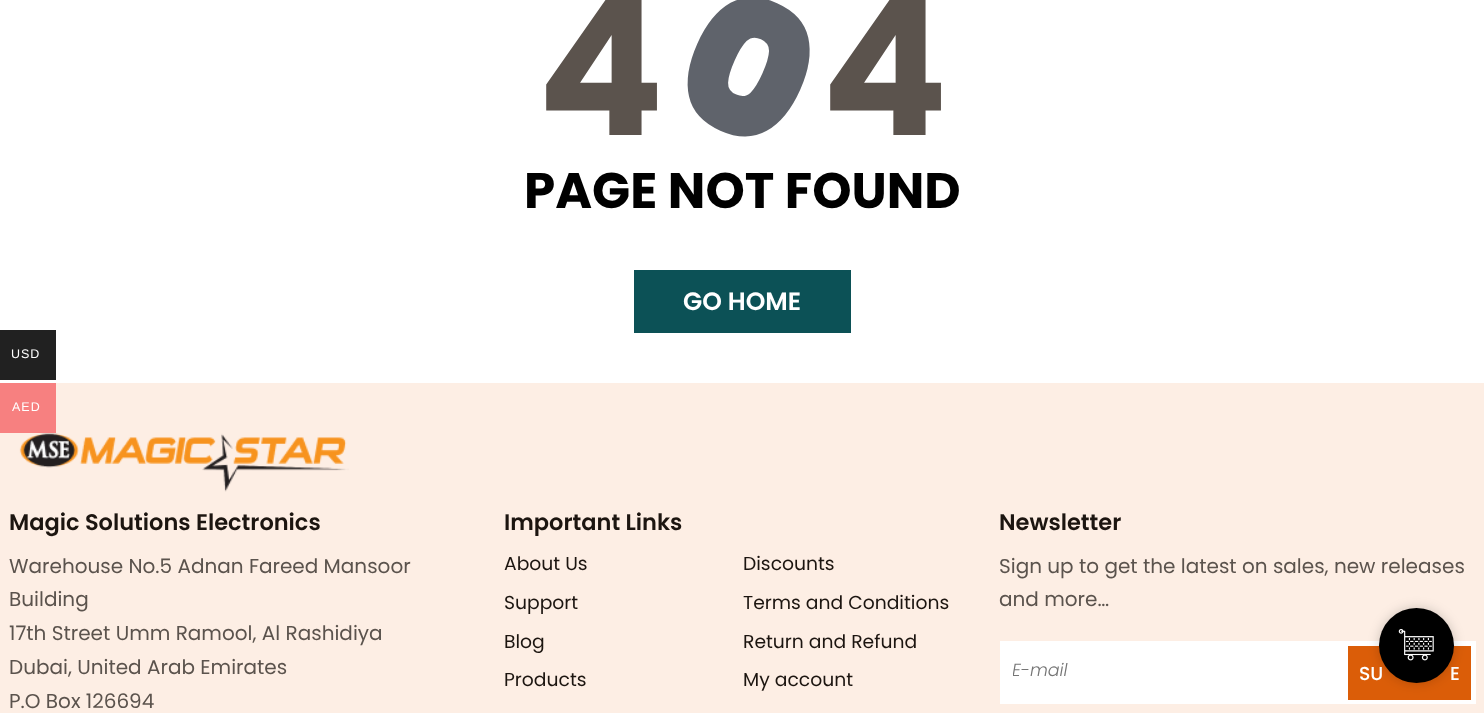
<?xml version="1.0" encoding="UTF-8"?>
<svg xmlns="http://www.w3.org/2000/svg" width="1484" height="713">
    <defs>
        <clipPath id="clip1"><rect x="1013" y="658" width="326" height="26"/></clipPath>
        <filter id="blur1" x="-50%" y="-200%" width="200%" height="500%"><feGaussianBlur stdDeviation="6"/></filter>
    </defs>
    <rect width="100%" height="100%" fill="#FFFFFF"/>
    <text x="537" y="135" font-family="Poppins" font-size="188" font-weight="700" fill="#5B534D">4</text>
    <text x="663" y="106" transform="rotate(24 663 106)" font-family="Poppins" font-size="188" font-weight="900" fill="#5F636B">0</text>
    <text x="821" y="135" font-family="Poppins" font-size="188" font-weight="700" fill="#5B534D">4</text>
    <text x="524" y="208" font-family="Poppins" font-size="50" font-weight="700" fill="#000000">PAGE NOT FOUND</text>
    <rect x="634" y="270" width="217" height="63" fill="#0C5156"/>
    <text x="683" y="310" font-family="Poppins" font-size="25" font-weight="600" fill="#FFFFFF">GO HOME</text>
    <rect x="0" y="383" width="1484" height="330" fill="#FDEEE4"/>
    <image x="19" y="433" width="330" height="59" href="img_01.png"/>
    <text x="9" y="530" font-family="Poppins" font-size="22.5" font-weight="600" fill="#1C1510">Magic Solutions Electronics</text>
    <text font-family="Poppins" font-size="20" fill="#5B534D">
        <tspan x="9" y="573">Warehouse No.5 Adnan Fareed Mansoor</tspan>
        <tspan x="9" y="606">Building</tspan>
        <tspan x="9" y="640">17th Street Umm Ramool, Al Rashidiya</tspan>
        <tspan x="9" y="674">Dubai, United Arab Emirates</tspan>
        <tspan x="9" y="708">P.O Box 126694</tspan>
    </text>
    <text x="504" y="530" font-family="Poppins" font-size="22.5" font-weight="600" fill="#1C1510">Important Links</text>
    <text x="504" y="570" font-family="Poppins" font-size="18.75" fill="#1C1510">About Us</text>
    <text x="743" y="570" font-family="Poppins" font-size="18.75" fill="#1C1510">Discounts</text>
    <text x="504" y="609" font-family="Poppins" font-size="18.75" fill="#1C1510">Support</text>
    <text x="743" y="609" font-family="Poppins" font-size="18.75" fill="#1C1510">Terms and Conditions</text>
    <text x="504" y="648" font-family="Poppins" font-size="18.75" fill="#1C1510">Blog</text>
    <text x="743" y="648" font-family="Poppins" font-size="18.75" fill="#1C1510">Return and Refund</text>
    <text x="504" y="686" font-family="Poppins" font-size="18.75" fill="#1C1510">Products</text>
    <text x="743" y="686" font-family="Poppins" font-size="18.75" fill="#1C1510">My account</text>
    <text x="999" y="530" font-family="Poppins" font-size="22.5" font-weight="600" fill="#1C1510">Newsletter</text>
    <text font-family="Poppins" font-size="20" fill="#5B534D">
        <tspan x="999" y="573">Sign up to get the latest on sales, new releases</tspan>
        <tspan x="999" y="606">and more…</tspan>
    </text>
    <rect x="1000" y="641" width="476" height="63" fill="#FFFFFF"/>
    <g clip-path="url(#clip1)">
        <text x="1012" y="676" font-family="Poppins" font-size="17.5" font-weight="300" font-style="italic" fill="#757575">E-mail</text>
    </g>
    <rect x="1348" y="646" width="123" height="54" fill="#DB5D08"/>
    <text x="1359" y="680" font-family="Poppins" font-size="18.75" font-weight="500" fill="#FFFFFF">SU</text>
    <text x="1450" y="680" font-family="Poppins" font-size="18.75" font-weight="500" fill="#FFFFFF">E</text>
    <rect x="0" y="330" width="56" height="50" fill="#212121"/>
    <text x="11" y="358" font-family="Liberation Sans" font-size="12.5" letter-spacing="1" fill="#FFFFFF">USD</text>
    <rect x="0" y="383" width="56" height="50" fill="#F78080"/>
    <text x="12" y="411" font-family="Liberation Sans" font-size="12.5" letter-spacing="1" fill="#FFFFFF">AED</text>
    <rect x="1379" y="608" width="75" height="75" rx="37.5" fill="#000000" fill-opacity="0.19" filter="url(#blur1)"/>
    <circle cx="1416.5" cy="645.5" r="37.5" fill="#000000"/>
    <image x="1398" y="629" width="36" height="32" href="img_02.png"/>
</svg>
